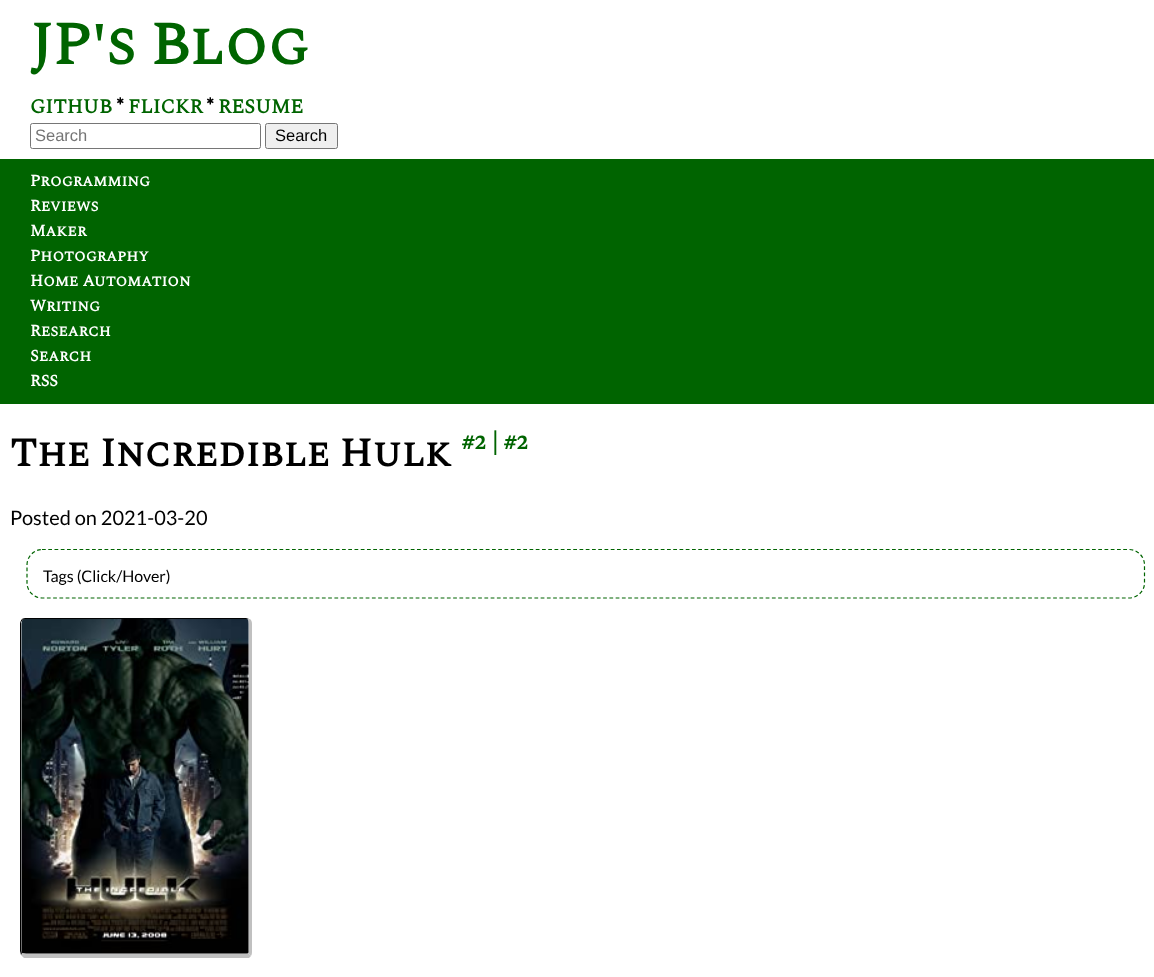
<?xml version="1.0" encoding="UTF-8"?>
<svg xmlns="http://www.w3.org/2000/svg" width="1154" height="977">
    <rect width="100%" height="100%" fill="#FFFFFF"/>
    <text x="30" y="64" font-family="Spectral SC" font-size="60" font-weight="700" fill="#006400">JP's Blog</text>
    <text x="30" y="113" font-family="Spectral SC" font-size="20" font-weight="700" fill="#006400">GITHUB</text>
    <text x="116" y="113" font-family="Lato" font-size="20" font-weight="700" fill="#000000">*</text>
    <text x="128" y="113" font-family="Spectral SC" font-size="20" font-weight="700" fill="#006400">FLICKR</text>
    <text x="206" y="113" font-family="Lato" font-size="20" font-weight="700" fill="#000000">*</text>
    <text x="218" y="113" font-family="Spectral SC" font-size="20" font-weight="700" fill="#006400">RESUME</text>
    <rect x="30.5" y="123.5" width="230" height="25" rx="2" fill="none" stroke="#767676"/>
    <text x="35" y="141" font-family="Liberation Sans" font-size="16.5" fill="#757575">Search</text>
    <rect x="265.5" y="123.5" width="72" height="25" rx="2" fill="#EFEFEF" stroke="#767676"/>
    <text x="275" y="141" font-family="Liberation Sans" font-size="16.5" fill="#000000">Search</text>
    <rect x="0" y="159" width="1154" height="245" fill="#006400"/>
    <text font-family="Spectral SC" font-size="16.25" font-weight="700" fill="#FFFFFF">
        <tspan x="30" y="186">Programming</tspan>
        <tspan x="30" y="211">Reviews</tspan>
        <tspan x="30" y="236">Maker</tspan>
        <tspan x="30" y="261">Photography</tspan>
        <tspan x="30" y="286">Home Automation</tspan>
        <tspan x="30" y="311">Writing</tspan>
        <tspan x="30" y="336">Research</tspan>
        <tspan x="30" y="361">Search</tspan>
        <tspan x="30" y="386">RSS</tspan>
    </text>
    <text x="10" y="466" font-family="Spectral SC" font-size="40" font-weight="700" fill="#000000">The Incredible Hulk</text>
    <text x="462" y="449" font-family="Spectral SC" font-size="24" font-weight="700" fill="#006400">#2 | #2</text>
    <text x="10" y="525" font-family="Lato" font-size="20" fill="#000000">Posted on 2021-03-20</text>
    <path d="M 42 549.5 H 1129 C 1137.5 549.5 1144.5 556.5 1144.5 565 V 583 C 1144.5 591 1137.5 598 1129 598 H 42 C 34 598 27 591 27 583 V 565 C 27 556.5 34 549.5 42 549.5 Z" fill="none" stroke="#006400" stroke-width="1.2" stroke-dasharray="3.75 2.5"/>
    <text x="43" y="582" font-family="Lato" font-size="16" fill="#000000">Tags (Click/Hover)</text>
    <path d="M 26 618 C 25 618 23 618 22 619 L 23 620 L 26 619 H 247 H 249 L 246 618 Z" fill="#000000"/>
    <path d="M 249 619 C 251 619 252 621 252 624 V 951 C 252 953 252 954 251 956 L 248 953 L 249 951 V 624 C 249 622 249 620 247 619 Z" fill="#C0C0C0"/>
    <path d="M 24 958 L 21 955 L 22 953 C 23 954 24 954 25 954 H 246 L 248 953 L 251 956 L 249 958 Z" fill="#C0C0C0"/>
    <path d="M 20 624 V 951 L 21 955 L 22 953 L 21 951 V 622 L 23 620 L 22 619 C 21 620 20 622 20 624 Z" fill="#000000"/>
    <image x="21" y="618" width="228" height="336" href="img_01.png"/>
</svg>
